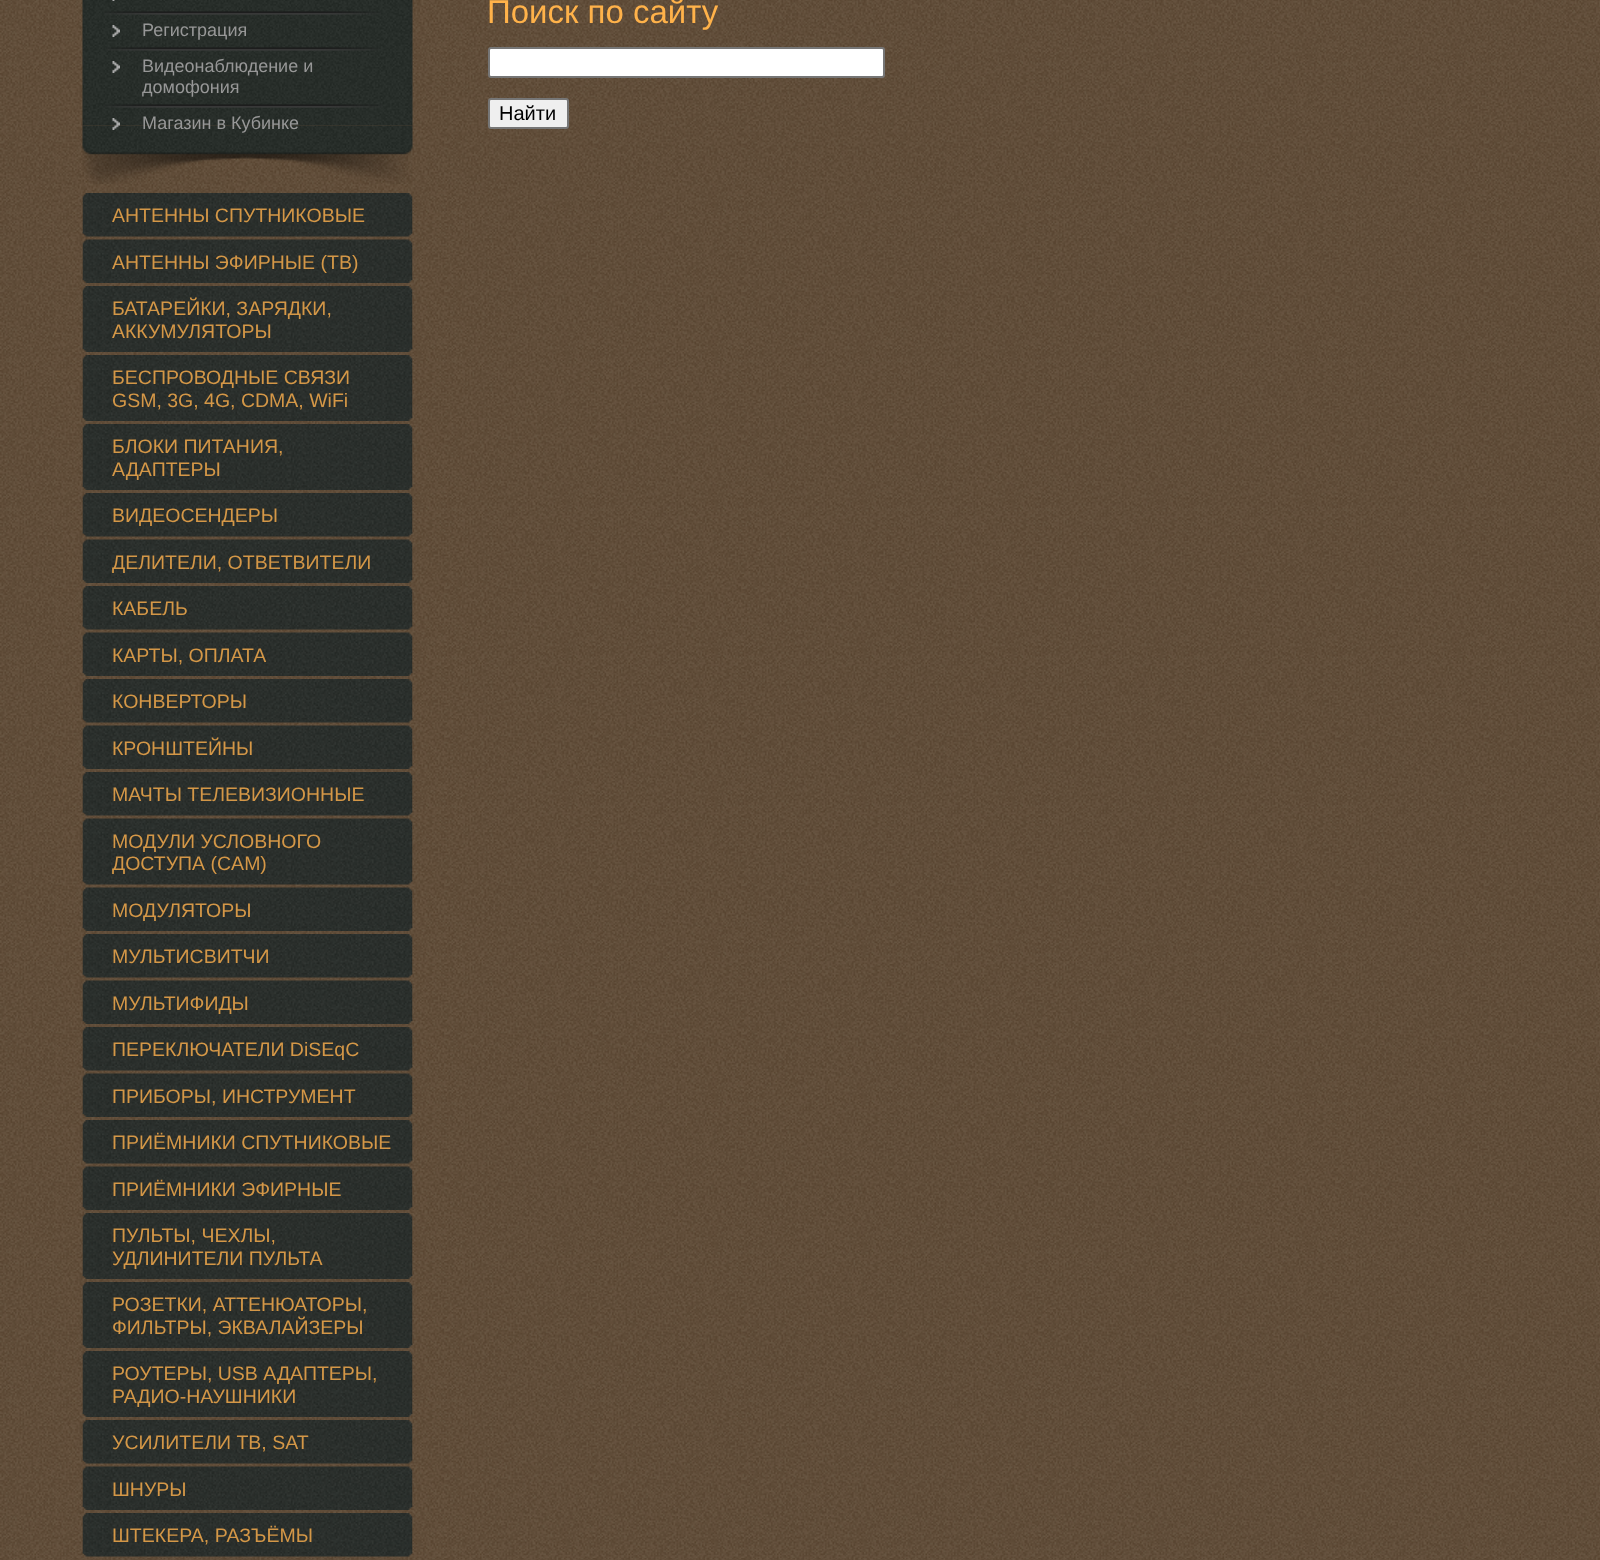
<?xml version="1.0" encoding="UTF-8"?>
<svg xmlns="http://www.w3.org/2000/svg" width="1600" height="1560">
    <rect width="100%" height="100%" fill="#FFFFFF"/>
    <image x="0" y="0" width="1600" height="1560" href="img_01.png"/>
    <image x="82" y="125" width="331" height="59" href="img_02.png"/>
    <image x="82" y="0" width="331" height="126" href="img_03.png"/>
    <image x="112" y="0" width="3" height="1" href="img_04.png"/>
    <image x="104" y="11" width="277" height="4" href="img_05.png"/>
    <image x="112" y="25" width="8" height="12" href="img_06.png"/>
    <text x="142" y="36" font-family="Liberation Sans" font-size="18" fill="#979797">Регистрация</text>
    <image x="106" y="47" width="274" height="4" href="img_07.png"/>
    <image x="112" y="61" width="8" height="12" href="img_08.png"/>
    <text font-family="Liberation Sans" font-size="18" fill="#979797">
        <tspan x="142" y="72">Видеонаблюдение и</tspan>
        <tspan x="142" y="93">домофония</tspan>
    </text>
    <image x="104" y="104" width="279" height="4" href="img_09.png"/>
    <image x="112" y="118" width="8" height="12" href="img_10.png"/>
    <text x="142" y="129" font-family="Liberation Sans" font-size="18" fill="#979797">Магазин в Кубинке</text>
    <image x="82" y="193" width="331" height="41" href="img_11.png"/>
    <image x="82" y="232" width="331" height="5" href="img_12.png"/>
    <text x="112" y="222" font-family="Liberation Sans" font-size="19.5" fill="#D49747">АНТЕННЫ СПУТНИКОВЫЕ</text>
    <image x="82" y="239" width="331" height="41" href="img_13.png"/>
    <image x="82" y="278" width="331" height="5" href="img_14.png"/>
    <text x="112" y="269" font-family="Liberation Sans" font-size="19.5" fill="#D49747">АНТЕННЫ ЭФИРНЫЕ (ТВ)</text>
    <image x="82" y="286" width="331" height="63" href="img_15.png"/>
    <image x="82" y="347" width="331" height="5" href="img_16.png"/>
    <text font-family="Liberation Sans" font-size="19.5" fill="#D49747">
        <tspan x="112" y="315">БАТАРЕЙКИ, ЗАРЯДКИ,</tspan>
        <tspan x="112" y="338">АККУМУЛЯТОРЫ</tspan>
    </text>
    <image x="82" y="355" width="331" height="63" href="img_17.png"/>
    <image x="82" y="416" width="331" height="5" href="img_18.png"/>
    <text font-family="Liberation Sans" font-size="19.5" fill="#D49747">
        <tspan x="112" y="384">БЕСПРОВОДНЫЕ СВЯЗИ</tspan>
        <tspan x="112" y="407">GSM, 3G, 4G, CDMA, WiFi</tspan>
    </text>
    <image x="82" y="424" width="331" height="63" href="img_19.png"/>
    <image x="82" y="485" width="331" height="5" href="img_20.png"/>
    <text font-family="Liberation Sans" font-size="19.5" fill="#D49747">
        <tspan x="112" y="453">БЛОКИ ПИТАНИЯ,</tspan>
        <tspan x="112" y="476">АДАПТЕРЫ</tspan>
    </text>
    <image x="82" y="493" width="331" height="41" href="img_21.png"/>
    <image x="82" y="532" width="331" height="5" href="img_22.png"/>
    <text x="112" y="522" font-family="Liberation Sans" font-size="19.5" fill="#D49747">ВИДЕОСЕНДЕРЫ</text>
    <image x="82" y="539" width="331" height="41" href="img_23.png"/>
    <image x="82" y="578" width="331" height="5" href="img_24.png"/>
    <text x="112" y="569" font-family="Liberation Sans" font-size="19.5" fill="#D49747">ДЕЛИТЕЛИ, ОТВЕТВИТЕЛИ</text>
    <image x="82" y="586" width="331" height="41" href="img_25.png"/>
    <image x="82" y="625" width="331" height="5" href="img_26.png"/>
    <text x="112" y="615" font-family="Liberation Sans" font-size="19.5" fill="#D49747">КАБЕЛЬ</text>
    <image x="82" y="632" width="331" height="41" href="img_27.png"/>
    <image x="82" y="671" width="331" height="5" href="img_28.png"/>
    <text x="112" y="662" font-family="Liberation Sans" font-size="19.5" fill="#D49747">КАРТЫ, ОПЛАТА</text>
    <image x="82" y="679" width="331" height="41" href="img_29.png"/>
    <image x="82" y="718" width="331" height="5" href="img_30.png"/>
    <text x="112" y="708" font-family="Liberation Sans" font-size="19.5" fill="#D49747">КОНВЕРТОРЫ</text>
    <image x="82" y="725" width="331" height="41" href="img_31.png"/>
    <image x="82" y="764" width="331" height="5" href="img_32.png"/>
    <text x="112" y="755" font-family="Liberation Sans" font-size="19.5" fill="#D49747">КРОНШТЕЙНЫ</text>
    <image x="82" y="772" width="331" height="41" href="img_33.png"/>
    <image x="82" y="811" width="331" height="5" href="img_34.png"/>
    <text x="112" y="801" font-family="Liberation Sans" font-size="19.5" fill="#D49747">МАЧТЫ ТЕЛЕВИЗИОННЫЕ</text>
    <image x="82" y="818" width="331" height="64" href="img_35.png"/>
    <image x="82" y="880" width="331" height="5" href="img_36.png"/>
    <text font-family="Liberation Sans" font-size="19.5" fill="#D49747">
        <tspan x="112" y="848">МОДУЛИ УСЛОВНОГО</tspan>
        <tspan x="112" y="870">ДОСТУПА (CAM)</tspan>
    </text>
    <image x="82" y="887" width="331" height="41" href="img_37.png"/>
    <image x="82" y="926" width="331" height="5" href="img_38.png"/>
    <text x="112" y="917" font-family="Liberation Sans" font-size="19.5" fill="#D49747">МОДУЛЯТОРЫ</text>
    <image x="82" y="934" width="331" height="41" href="img_39.png"/>
    <image x="82" y="973" width="331" height="5" href="img_40.png"/>
    <text x="112" y="963" font-family="Liberation Sans" font-size="19.5" fill="#D49747">МУЛЬТИСВИТЧИ</text>
    <image x="82" y="980" width="331" height="41" href="img_41.png"/>
    <image x="82" y="1019" width="331" height="5" href="img_42.png"/>
    <text x="112" y="1010" font-family="Liberation Sans" font-size="19.5" fill="#D49747">МУЛЬТИФИДЫ</text>
    <image x="82" y="1027" width="331" height="41" href="img_43.png"/>
    <image x="82" y="1066" width="331" height="5" href="img_44.png"/>
    <text x="112" y="1056" font-family="Liberation Sans" font-size="19.5" fill="#D49747">ПЕРЕКЛЮЧАТЕЛИ DiSEqC</text>
    <image x="82" y="1073" width="331" height="41" href="img_45.png"/>
    <image x="82" y="1112" width="331" height="5" href="img_46.png"/>
    <text x="112" y="1103" font-family="Liberation Sans" font-size="19.5" fill="#D49747">ПРИБОРЫ, ИНСТРУМЕНТ</text>
    <image x="82" y="1120" width="331" height="41" href="img_47.png"/>
    <image x="82" y="1159" width="331" height="5" href="img_48.png"/>
    <text x="112" y="1149" font-family="Liberation Sans" font-size="19.5" fill="#D49747">ПРИЁМНИКИ СПУТНИКОВЫЕ</text>
    <image x="82" y="1166" width="331" height="41" href="img_49.png"/>
    <image x="82" y="1205" width="331" height="5" href="img_50.png"/>
    <text x="112" y="1196" font-family="Liberation Sans" font-size="19.5" fill="#D49747">ПРИЁМНИКИ ЭФИРНЫЕ</text>
    <image x="82" y="1213" width="331" height="63" href="img_51.png"/>
    <image x="82" y="1274" width="331" height="5" href="img_52.png"/>
    <text font-family="Liberation Sans" font-size="19.5" fill="#D49747">
        <tspan x="112" y="1242">ПУЛЬТЫ, ЧЕХЛЫ,</tspan>
        <tspan x="112" y="1265">УДЛИНИТЕЛИ ПУЛЬТА</tspan>
    </text>
    <image x="82" y="1282" width="331" height="63" href="img_53.png"/>
    <image x="82" y="1343" width="331" height="5" href="img_54.png"/>
    <text font-family="Liberation Sans" font-size="19.5" fill="#D49747">
        <tspan x="112" y="1311">РОЗЕТКИ, АТТЕНЮАТОРЫ,</tspan>
        <tspan x="112" y="1334">ФИЛЬТРЫ, ЭКВАЛАЙЗЕРЫ</tspan>
    </text>
    <image x="82" y="1351" width="331" height="63" href="img_55.png"/>
    <image x="82" y="1412" width="331" height="5" href="img_56.png"/>
    <text font-family="Liberation Sans" font-size="19.5" fill="#D49747">
        <tspan x="112" y="1380">РОУТЕРЫ, USB АДАПТЕРЫ,</tspan>
        <tspan x="112" y="1403">РАДИО-НАУШНИКИ</tspan>
    </text>
    <image x="82" y="1420" width="331" height="41" href="img_57.png"/>
    <image x="82" y="1459" width="331" height="5" href="img_58.png"/>
    <text x="112" y="1449" font-family="Liberation Sans" font-size="19.5" fill="#D49747">УСИЛИТЕЛИ TВ, SAT</text>
    <image x="82" y="1466" width="331" height="41" href="img_59.png"/>
    <image x="82" y="1505" width="331" height="5" href="img_60.png"/>
    <text x="112" y="1496" font-family="Liberation Sans" font-size="19.5" fill="#D49747">ШНУРЫ</text>
    <image x="82" y="1513" width="331" height="41" href="img_61.png"/>
    <image x="82" y="1552" width="331" height="5" href="img_62.png"/>
    <text x="112" y="1542" font-family="Liberation Sans" font-size="19.5" fill="#D49747">ШТЕКЕРА, РАЗЪЁМЫ</text>
    <text x="487" y="23" font-family="Liberation Sans" font-size="33" fill="#FFB24A">Поиск по сайту</text>
    <rect x="489" y="48" width="395" height="29" rx="2" fill="#FFFFFF" stroke="#767676" stroke-width="2"/>
    <rect x="489" y="99" width="79" height="29" rx="2" fill="#EFEFEF" stroke="#767676" stroke-width="2"/>
    <text x="499" y="120" font-family="Liberation Sans" font-size="20" fill="#000000">Найти</text>
</svg>
